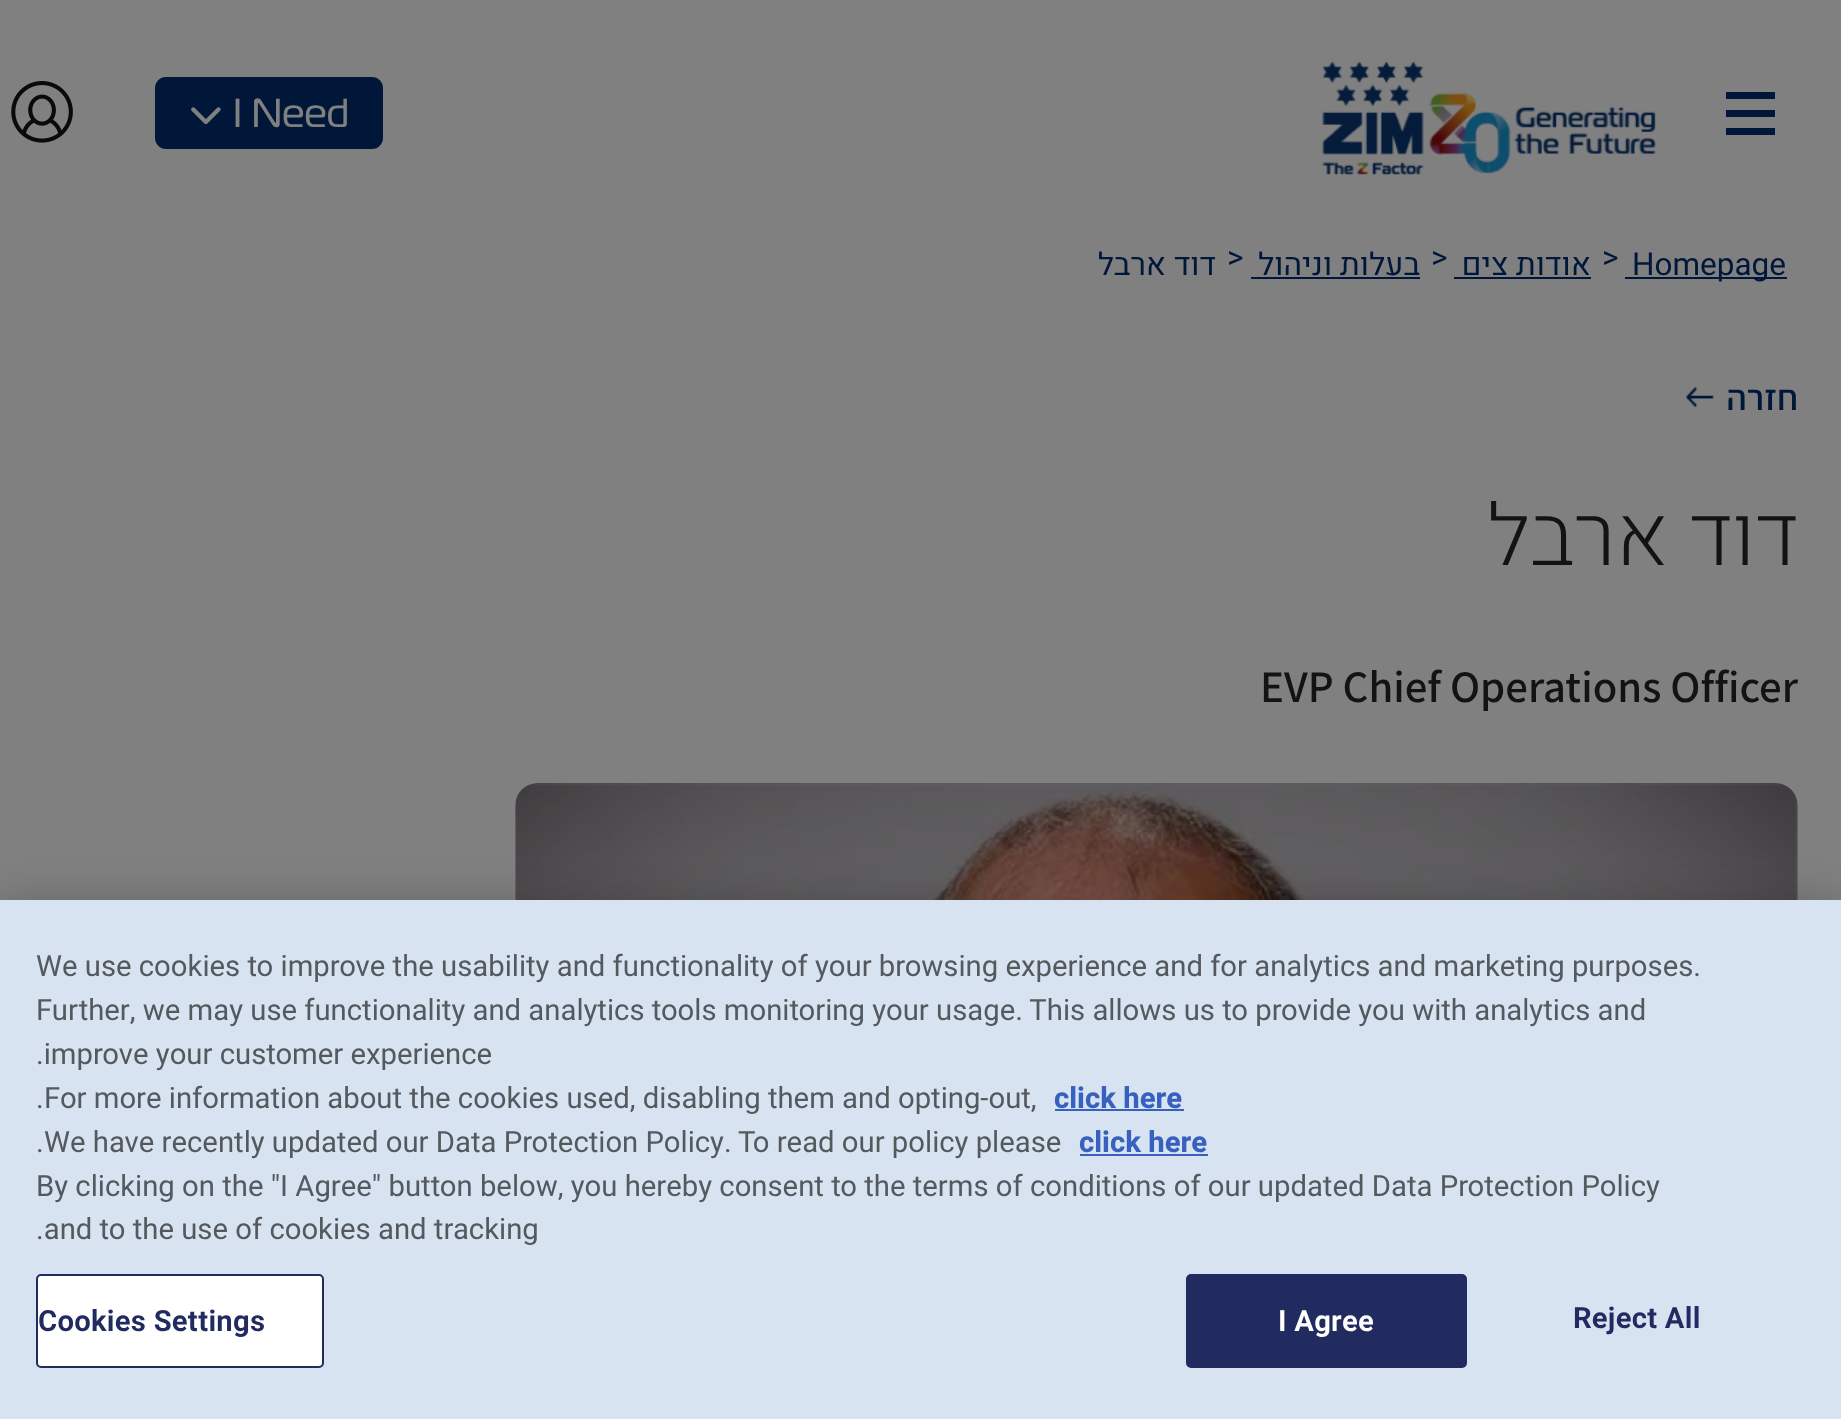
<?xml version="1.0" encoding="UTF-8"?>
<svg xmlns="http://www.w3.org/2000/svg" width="1841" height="1419">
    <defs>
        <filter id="blur1" x="-50%" y="-200%" width="200%" height="500%"><feGaussianBlur stdDeviation="20"/></filter>
    </defs>
    <rect width="100%" height="100%" fill="#808080"/>
    <image x="11" y="81" width="62" height="62" href="img_01.png"/>
    <rect x="155" y="77" width="228" height="72" rx="11" fill="#001739"/>
    <image x="191" y="107" width="30" height="18" href="img_02.png"/>
    <text x="233" y="127" font-family="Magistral" font-size="40.5" fill="#808080">I Need</text>
    <image x="1322" y="61" width="334" height="114" href="img_03.png"/>
    <rect x="1726" y="92" width="49" height="7" fill="#001739"/>
    <rect x="1726" y="110" width="49" height="7" fill="#001739"/>
    <rect x="1726" y="128" width="49" height="7" fill="#001739"/>
    <text x="1216" y="275" font-family="Heebo" font-size="31.5" direction="rtl" fill="#001739">דוד ארבל</text>
    <text x="1227" y="268" font-family="Heebo" font-size="31.5" fill="#001739">&gt;</text>
    <text x="1420" y="275" font-family="Heebo" font-size="31.5" direction="rtl" fill="#001739">בעלות וניהול</text>
    <rect x="1251" y="277" width="169" height="2" fill="#001739"/>
    <text x="1431" y="268" font-family="Heebo" font-size="31.5" fill="#001739">&gt;</text>
    <text x="1591" y="275" font-family="Heebo" font-size="31.5" direction="rtl" fill="#001739">אודות צים</text>
    <rect x="1454" y="277" width="137" height="2" fill="#001739"/>
    <text x="1602" y="268" font-family="Heebo" font-size="31.5" fill="#001739">&gt;</text>
    <rect x="1625" y="277" width="162" height="2" fill="#001739"/>
    <text x="1632" y="275" font-family="Heebo" font-size="31.5" fill="#001739">Homepage</text>
    <image x="1686" y="386" width="28" height="22" href="img_04.png"/>
    <text x="1798" y="410" font-family="Assistant" font-size="36" font-weight="600" direction="rtl" fill="#001739">חזרה</text>
    <text x="1798" y="565" font-family="Heebo" font-size="85.5" font-weight="300" direction="rtl" fill="#111315">דוד ארבל</text>
    <text x="1260" y="702" font-family="Assistant" font-size="45" font-weight="600" fill="#111315">EVP Chief Operations Officer</text>
    <image x="515" y="783" width="1283" height="117" href="img_05.png"/>
    <rect x="0" y="900" width="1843" height="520" fill="#000000" fill-opacity="0.2" filter="url(#blur1)"/>
    <rect x="0" y="900" width="1841" height="519" fill="#D8E3F2"/>
    <text font-family="Heebo" font-size="29.27" fill="#54595E">
        <tspan x="36" y="976">We use cookies to improve the usability and functionality of your browsing experience and for analytics and marketing purposes.</tspan>
        <tspan x="36" y="1020">Further, we may use functionality and analytics tools monitoring your usage. This allows us to provide you with analytics and</tspan>
        <tspan x="36" y="1064">.improve your customer experience</tspan>
        <tspan x="36" y="1108">.</tspan>
    </text>
    <text x="44" y="1108" font-family="Heebo" font-size="29.27" fill="#54595E">For more information about the cookies used, disabling them and opting-out,</text>
    <text x="1054" y="1108" font-family="Heebo" font-size="29.27" font-weight="700" fill="#3860BE">click here</text>
    <rect x="1055" y="1109" width="129" height="2" fill="#3860BE"/>
    <text x="36" y="1152" font-family="Heebo" font-size="29.27" fill="#54595E">.</text>
    <text x="44" y="1152" font-family="Heebo" font-size="29.27" fill="#54595E">We have recently updated our Data Protection Policy. To read our policy please</text>
    <text x="1079" y="1152" font-family="Heebo" font-size="29.27" font-weight="700" fill="#3860BE">click here</text>
    <rect x="1080" y="1154" width="128" height="2" fill="#3860BE"/>
    <text font-family="Heebo" font-size="29.27" fill="#54595E">
        <tspan x="36" y="1196">By clicking on the "I Agree" button below, you hereby consent to the terms of conditions of our updated Data Protection Policy</tspan>
        <tspan x="36" y="1239">.and to the use of cookies and tracking</tspan>
    </text>
    <rect x="37" y="1275" width="286" height="92" rx="4" fill="#FFFFFF" stroke="#212B60" stroke-width="2"/>
    <text x="38" y="1331" font-family="Heebo" font-size="29.27" font-weight="600" letter-spacing="0.25" fill="#212B60">Cookies Settings</text>
    <rect x="1187" y="1275" width="279" height="92" rx="4" fill="#212B60" stroke="#212B60" stroke-width="2"/>
    <text x="1278" y="1331" font-family="Heebo" font-size="29.27" font-weight="600" letter-spacing="0.25" fill="#FFFFFF">I Agree</text>
    <text x="1573" y="1328" font-family="Heebo" font-size="29.27" font-weight="600" letter-spacing="0.25" fill="#212B60">Reject All</text>
</svg>
